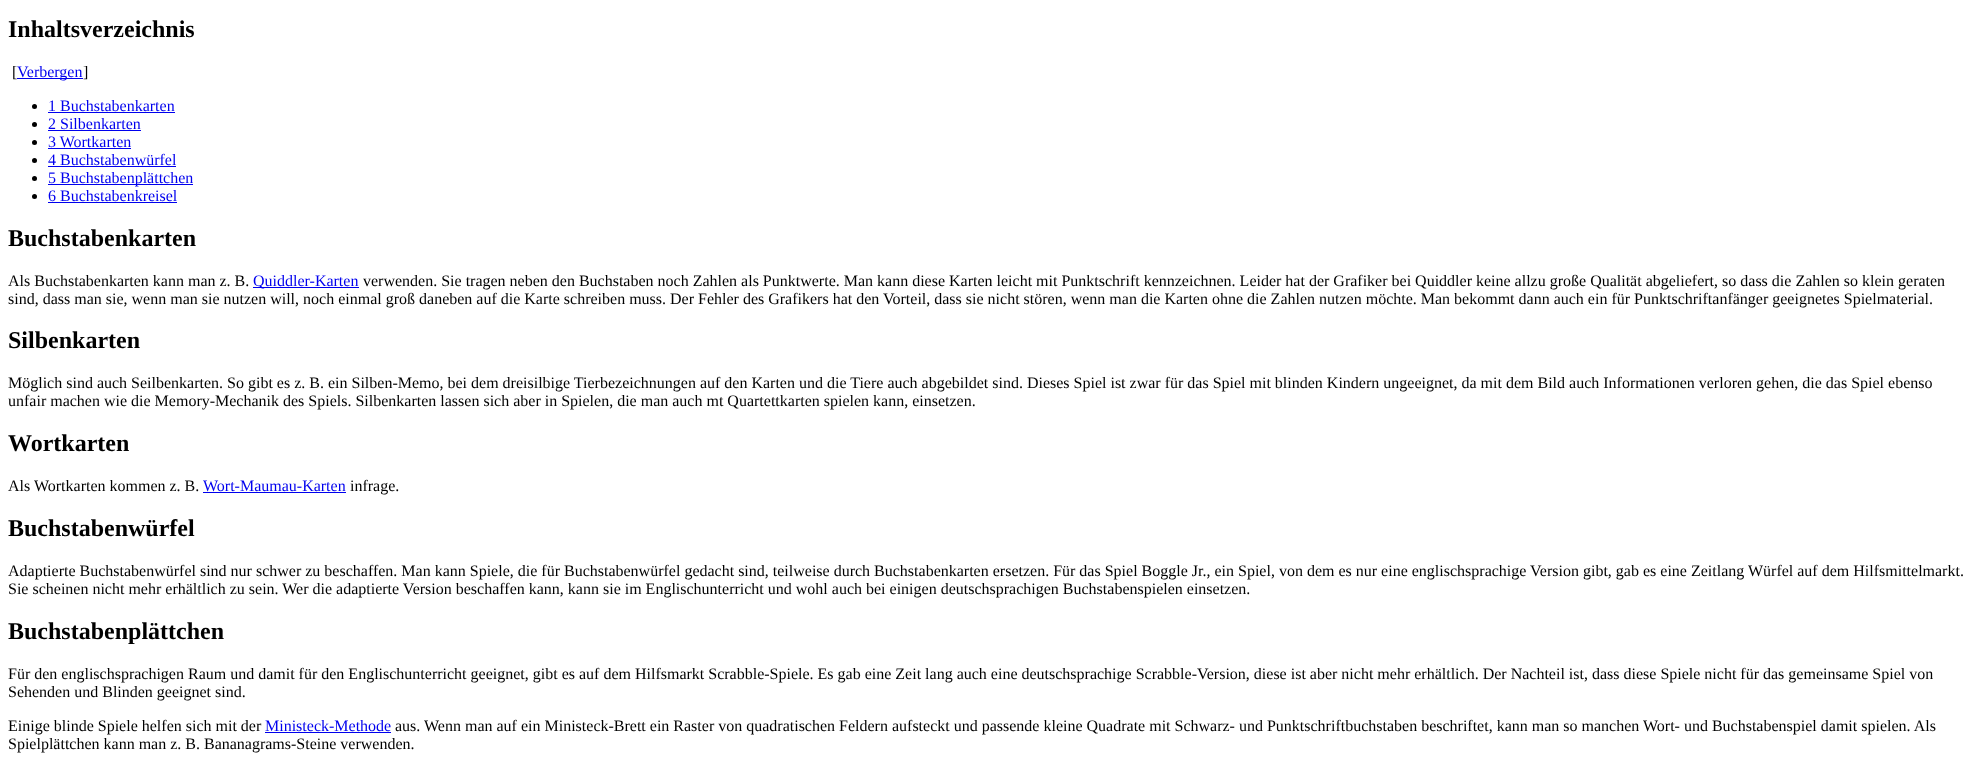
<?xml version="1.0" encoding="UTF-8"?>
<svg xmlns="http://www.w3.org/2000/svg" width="1980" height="768">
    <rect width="100%" height="100%" fill="#FFFFFF"/>
    <text x="8" y="37" font-family="Liberation Serif" font-size="24" font-weight="700" fill="#000000">Inhaltsverzeichnis</text>
    <text x="12" y="77" font-family="Liberation Serif" font-size="16" fill="#000000">[</text>
    <rect x="17" y="78" width="66" height="1" fill="#0000EE"/>
    <text x="17" y="77" font-family="Liberation Serif" font-size="16" fill="#0000EE">Verbergen</text>
    <text x="83" y="77" font-family="Liberation Serif" font-size="16" fill="#000000">]</text>
    <circle cx="34.5" cy="106.5" r="2.5" fill="#000000"/>
    <text x="48" y="111" font-family="Liberation Serif" font-size="16" fill="#0000EE">1 Buchstabenkarten</text>
    <rect x="48" y="112" width="127" height="1" fill="#0000EE"/>
    <circle cx="34.5" cy="124.5" r="2.5" fill="#000000"/>
    <text x="48" y="129" font-family="Liberation Serif" font-size="16" fill="#0000EE">2 Silbenkarten</text>
    <rect x="48" y="130" width="93" height="1" fill="#0000EE"/>
    <circle cx="34.5" cy="142.5" r="2.5" fill="#000000"/>
    <text x="48" y="147" font-family="Liberation Serif" font-size="16" fill="#0000EE">3 Wortkarten</text>
    <rect x="48" y="148" width="83" height="1" fill="#0000EE"/>
    <circle cx="34.5" cy="160.5" r="2.5" fill="#000000"/>
    <text x="48" y="165" font-family="Liberation Serif" font-size="16" fill="#0000EE">4 Buchstabenwürfel</text>
    <rect x="48" y="166" width="128" height="1" fill="#0000EE"/>
    <circle cx="34.5" cy="178.5" r="2.5" fill="#000000"/>
    <rect x="48" y="184" width="145" height="1" fill="#0000EE"/>
    <text x="48" y="183" font-family="Liberation Serif" font-size="16" fill="#0000EE">5 Buchstabenplättchen</text>
    <circle cx="34.5" cy="196.5" r="2.5" fill="#000000"/>
    <text x="48" y="201" font-family="Liberation Serif" font-size="16" fill="#0000EE">6 Buchstabenkreisel</text>
    <rect x="48" y="202" width="129" height="1" fill="#0000EE"/>
    <text x="8" y="246" font-family="Liberation Serif" font-size="24" font-weight="700" fill="#000000">Buchstabenkarten</text>
    <text x="8" y="286" font-family="Liberation Serif" font-size="16" fill="#000000">Als Buchstabenkarten kann man z. B.</text>
    <rect x="253" y="287" width="106" height="1" fill="#0000EE"/>
    <text x="253" y="286" font-family="Liberation Serif" font-size="16" fill="#0000EE">Quiddler-Karten</text>
    <text x="363" y="286" font-family="Liberation Serif" font-size="16" fill="#000000">verwenden. Sie tragen neben den Buchstaben noch Zahlen als Punktwerte. Man kann diese Karten leicht mit Punktschrift kennzeichnen. Leider hat der Grafiker bei Quiddler keine allzu große Qualität abgeliefert, so dass die Zahlen so klein geraten</text>
    <text x="8" y="304" font-family="Liberation Serif" font-size="16" fill="#000000">sind, dass man sie, wenn man sie nutzen will, noch einmal groß daneben auf die Karte schreiben muss. Der Fehler des Grafikers hat den Vorteil, dass sie nicht stören, wenn man die Karten ohne die Zahlen nutzen möchte. Man bekommt dann auch ein für Punktschriftanfänger geeignetes Spielmaterial.</text>
    <text x="8" y="348" font-family="Liberation Serif" font-size="24" font-weight="700" fill="#000000">Silbenkarten</text>
    <text font-family="Liberation Serif" font-size="16" fill="#000000">
        <tspan x="8" y="388">Möglich sind auch Seilbenkarten. So gibt es z. B. ein Silben-Memo, bei dem dreisilbige Tierbezeichnungen auf den Karten und die Tiere auch abgebildet sind. Dieses Spiel ist zwar für das Spiel mit blinden Kindern ungeeignet, da mit dem Bild auch Informationen verloren gehen, die das Spiel ebenso</tspan>
        <tspan x="8" y="406">unfair machen wie die Memory-Mechanik des Spiels. Silbenkarten lassen sich aber in Spielen, die man auch mt Quartettkarten spielen kann, einsetzen.</tspan>
    </text>
    <text x="8" y="451" font-family="Liberation Serif" font-size="24" font-weight="700" fill="#000000">Wortkarten</text>
    <text x="8" y="491" font-family="Liberation Serif" font-size="16" fill="#000000">Als Wortkarten kommen z. B.</text>
    <text x="203" y="491" font-family="Liberation Serif" font-size="16" fill="#0000EE">Wort-Maumau-Karten</text>
    <rect x="203" y="492" width="143" height="1" fill="#0000EE"/>
    <text x="350" y="491" font-family="Liberation Serif" font-size="16" fill="#000000">infrage.</text>
    <text x="8" y="536" font-family="Liberation Serif" font-size="24" font-weight="700" fill="#000000">Buchstabenwürfel</text>
    <text font-family="Liberation Serif" font-size="16" fill="#000000">
        <tspan x="8" y="576">Adaptierte Buchstabenwürfel sind nur schwer zu beschaffen. Man kann Spiele, die für Buchstabenwürfel gedacht sind, teilweise durch Buchstabenkarten ersetzen. Für das Spiel Boggle Jr., ein Spiel, von dem es nur eine englischsprachige Version gibt, gab es eine Zeitlang Würfel auf dem Hilfsmittelmarkt.</tspan>
        <tspan x="8" y="594">Sie scheinen nicht mehr erhältlich zu sein. Wer die adaptierte Version beschaffen kann, kann sie im Englischunterricht und wohl auch bei einigen deutschsprachigen Buchstabenspielen einsetzen.</tspan>
    </text>
    <text x="8" y="639" font-family="Liberation Serif" font-size="24" font-weight="700" fill="#000000">Buchstabenplättchen</text>
    <text font-family="Liberation Serif" font-size="16" fill="#000000">
        <tspan x="8" y="679">Für den englischsprachigen Raum und damit für den Englischunterricht geeignet, gibt es auf dem Hilfsmarkt Scrabble-Spiele. Es gab eine Zeit lang auch eine deutschsprachige Scrabble-Version, diese ist aber nicht mehr erhältlich. Der Nachteil ist, dass diese Spiele nicht für das gemeinsame Spiel von</tspan>
        <tspan x="8" y="697">Sehenden und Blinden geeignet sind.</tspan>
    </text>
    <text x="8" y="731" font-family="Liberation Serif" font-size="16" fill="#000000">Einige blinde Spiele helfen sich mit der</text>
    <text x="265" y="731" font-family="Liberation Serif" font-size="16" fill="#0000EE">Ministeck-Methode</text>
    <rect x="265" y="732" width="126" height="1" fill="#0000EE"/>
    <text x="395" y="731" font-family="Liberation Serif" font-size="16" fill="#000000">aus. Wenn man auf ein Ministeck-Brett ein Raster von quadratischen Feldern aufsteckt und passende kleine Quadrate mit Schwarz- und Punktschriftbuchstaben beschriftet, kann man so manchen Wort- und Buchstabenspiel damit spielen. Als</text>
    <text x="8" y="749" font-family="Liberation Serif" font-size="16" fill="#000000">Spielplättchen kann man z. B. Bananagrams-Steine verwenden.</text>
</svg>
